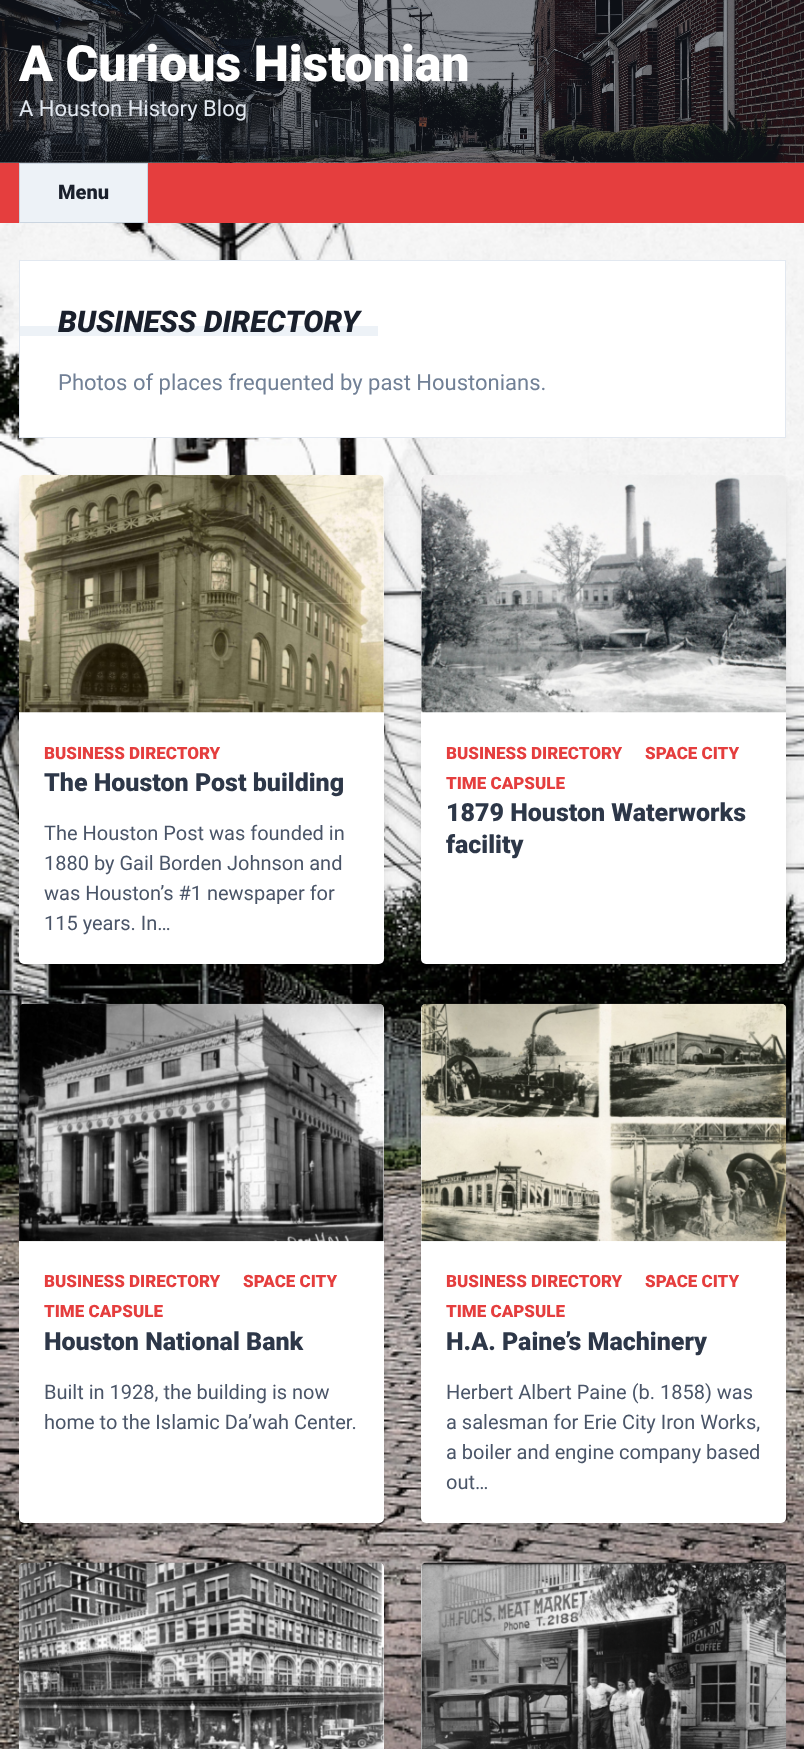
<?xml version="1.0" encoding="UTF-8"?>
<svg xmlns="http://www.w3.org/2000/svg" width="804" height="1749">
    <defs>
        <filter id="blur1" x="-50%" y="-200%" width="200%" height="500%"><feGaussianBlur stdDeviation="4"/></filter>
        <filter id="blur2" x="-50%" y="-200%" width="200%" height="500%"><feGaussianBlur stdDeviation="9.5"/></filter>
    </defs>
    <rect width="100%" height="100%" fill="#FFFFFF"/>
    <image x="0" y="162" width="804" height="1587" href="img_01.png"/>
    <image x="0" y="0" width="804" height="163" href="img_02.png"/>
    <rect x="0" y="0" width="804" height="163" fill="#1A202C" fill-opacity="0.5"/>
    <text x="19" y="81" font-family="Roboto" font-size="50" font-weight="900" fill="#FFFFFF">A Curious Histonian</text>
    <text x="19" y="116" font-family="Roboto" font-size="22" fill="#E2E8F0">A Houston History Blog</text>
    <rect x="0" y="163" width="804" height="60" fill="#E53E3E"/>
    <rect x="19.5" y="163.5" width="128" height="59" fill="#EDF2F7" stroke="#CBD5E0"/>
    <text x="58" y="199" font-family="Roboto" font-size="20" font-weight="900" fill="#1A202C">Menu</text>
    <rect x="19.5" y="260.5" width="766" height="177" fill="#FFFFFF" stroke="#E2E8F0"/>
    <rect x="20" y="326" width="358" height="10" fill="#EDF2F7"/>
    <text x="58" y="332" font-family="Roboto" font-size="30" font-weight="900" font-style="italic" fill="#1A202C">BUSINESS DIRECTORY</text>
    <text x="58" y="390" font-family="Roboto" font-size="22" fill="#718096">Photos of places frequented by past Houstonians.</text>
    <rect x="21" y="483" width="360" height="483" rx="2.5" fill="#000000" fill-opacity="0.05" filter="url(#blur1)"/>
    <rect x="23" y="491" width="357" height="482" rx="1" fill="#000000" fill-opacity="0.1" filter="url(#blur2)"/>
    <rect x="19" y="475" width="365" height="489" rx="5" fill="#FFFFFF"/>
    <image x="18" y="475" width="366" height="238" href="img_03.png"/>
    <text x="44" y="759" font-family="Roboto" font-size="17" font-weight="900" fill="#E53E3E">BUSINESS DIRECTORY</text>
    <text x="44" y="791" font-family="Roboto" font-size="25" font-weight="900" fill="#2D3748">The Houston Post building</text>
    <text font-family="Roboto" font-size="20" fill="#4A5568">
        <tspan x="44" y="840">The Houston Post was founded in</tspan>
        <tspan x="44" y="870">1880 by Gail Borden Johnson and</tspan>
        <tspan x="44" y="900">was Houston’s #1 newspaper for</tspan>
        <tspan x="44" y="930">115 years. In…</tspan>
    </text>
    <rect x="424" y="483" width="360" height="483" rx="2.5" fill="#000000" fill-opacity="0.05" filter="url(#blur1)"/>
    <rect x="425" y="491" width="358" height="482" rx="1" fill="#000000" fill-opacity="0.1" filter="url(#blur2)"/>
    <rect x="421" y="475" width="365" height="489" rx="5" fill="#FFFFFF"/>
    <image x="421" y="475" width="366" height="238" href="img_04.png"/>
    <text x="446" y="759" font-family="Roboto" font-size="17" font-weight="900" fill="#E53E3E">BUSINESS DIRECTORY</text>
    <text x="645" y="759" font-family="Roboto" font-size="17" font-weight="900" fill="#E53E3E">SPACE CITY</text>
    <text x="446" y="789" font-family="Roboto" font-size="17" font-weight="900" fill="#E53E3E">TIME CAPSULE</text>
    <text font-family="Roboto" font-size="25" font-weight="900" fill="#2D3748">
        <tspan x="446" y="821">1879 Houston Waterworks</tspan>
        <tspan x="446" y="853">facility</tspan>
    </text>
    <rect x="21" y="1011" width="360" height="514" rx="2.5" fill="#000000" fill-opacity="0.05" filter="url(#blur1)"/>
    <rect x="23" y="1020" width="357" height="511" rx="1" fill="#000000" fill-opacity="0.1" filter="url(#blur2)"/>
    <rect x="19" y="1004" width="365" height="519" rx="5" fill="#FFFFFF"/>
    <image x="18" y="1003" width="366" height="239" href="img_05.png"/>
    <text x="44" y="1287" font-family="Roboto" font-size="17" font-weight="900" fill="#E53E3E">BUSINESS DIRECTORY</text>
    <text x="243" y="1287" font-family="Roboto" font-size="17" font-weight="900" fill="#E53E3E">SPACE CITY</text>
    <text x="44" y="1317" font-family="Roboto" font-size="17" font-weight="900" fill="#E53E3E">TIME CAPSULE</text>
    <text x="44" y="1350" font-family="Roboto" font-size="25" font-weight="900" fill="#2D3748">Houston National Bank</text>
    <text font-family="Roboto" font-size="20" fill="#4A5568">
        <tspan x="44" y="1399">Built in 1928, the building is now</tspan>
        <tspan x="44" y="1429">home to the Islamic Da’wah Center.</tspan>
    </text>
    <rect x="424" y="1011" width="360" height="514" rx="2.5" fill="#000000" fill-opacity="0.05" filter="url(#blur1)"/>
    <rect x="425" y="1020" width="358" height="511" rx="1" fill="#000000" fill-opacity="0.1" filter="url(#blur2)"/>
    <rect x="421" y="1004" width="365" height="519" rx="5" fill="#FFFFFF"/>
    <image x="421" y="1003" width="366" height="239" href="img_06.png"/>
    <text x="446" y="1287" font-family="Roboto" font-size="17" font-weight="900" fill="#E53E3E">BUSINESS DIRECTORY</text>
    <text x="645" y="1287" font-family="Roboto" font-size="17" font-weight="900" fill="#E53E3E">SPACE CITY</text>
    <text x="446" y="1317" font-family="Roboto" font-size="17" font-weight="900" fill="#E53E3E">TIME CAPSULE</text>
    <text x="446" y="1350" font-family="Roboto" font-size="25" font-weight="900" fill="#2D3748">H.A. Paine’s Machinery</text>
    <text font-family="Roboto" font-size="20" fill="#4A5568">
        <tspan x="446" y="1399">Herbert Albert Paine (b. 1858) was</tspan>
        <tspan x="446" y="1429">a salesman for Erie City Iron Works,</tspan>
        <tspan x="446" y="1459">a boiler and engine company based</tspan>
        <tspan x="446" y="1489">out…</tspan>
    </text>
    <rect x="23" y="1579" width="357" height="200" rx="1" fill="#000000" fill-opacity="0.1" filter="url(#blur2)"/>
    <rect x="19" y="1563" width="365" height="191" rx="5" fill="#FFFFFF"/>
    <image x="18" y="1562" width="366" height="187" href="img_07.png"/>
    <rect x="425" y="1579" width="358" height="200" rx="1" fill="#000000" fill-opacity="0.1" filter="url(#blur2)"/>
    <rect x="421" y="1563" width="365" height="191" rx="5" fill="#FFFFFF"/>
    <image x="421" y="1562" width="366" height="187" href="img_08.png"/>
</svg>
